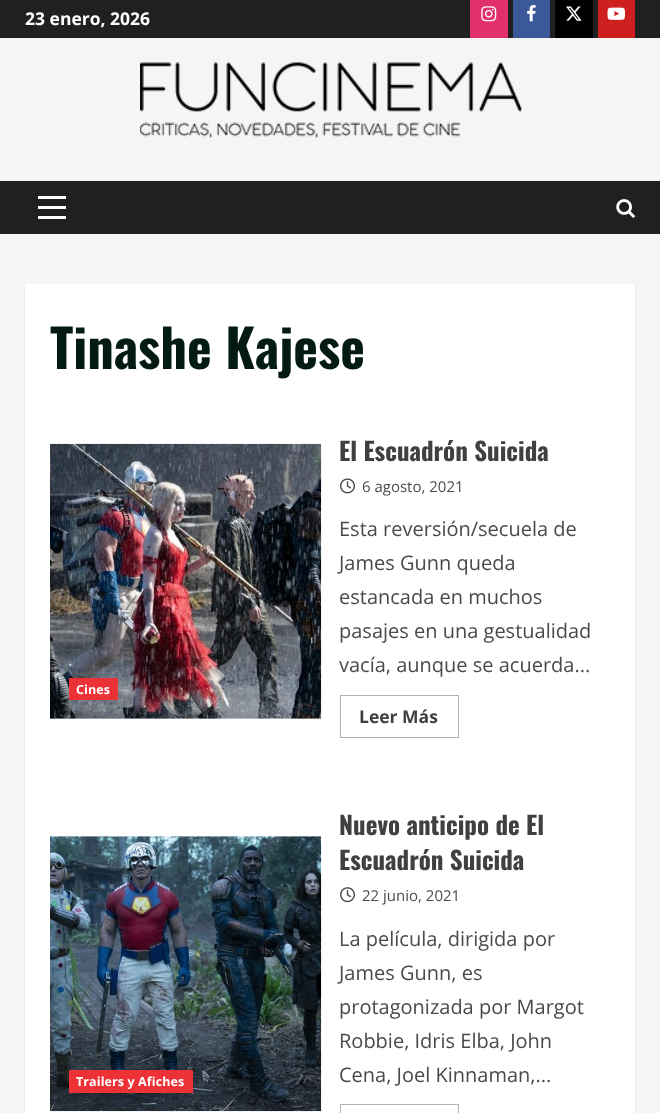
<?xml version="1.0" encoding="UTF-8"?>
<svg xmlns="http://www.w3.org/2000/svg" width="660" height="1113">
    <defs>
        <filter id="blur1" x="-50%" y="-200%" width="200%" height="500%"><feGaussianBlur stdDeviation="1"/></filter>
    </defs>
    <rect width="100%" height="100%" fill="#F5F5F5"/>
    <rect x="0" y="0" width="660" height="38" fill="#202020"/>
    <text x="25" y="25" font-family="Open Sans" font-size="17.5" font-weight="700" fill="#FFFFFF">23 enero, 2026</text>
    <rect x="470" y="0" width="38" height="38" fill="#E1306C"/>
    <image x="481" y="6" width="16" height="16" href="img_01.png"/>
    <rect x="513" y="0" width="37" height="38" fill="#3B5999"/>
    <image x="527" y="5" width="9" height="17" href="img_02.png"/>
    <rect x="555" y="0" width="38" height="38" fill="#000000"/>
    <image x="566" y="6" width="16" height="15" href="img_03.png"/>
    <rect x="598" y="0" width="37" height="38" fill="#CD201F"/>
    <image x="607" y="7" width="18" height="13" href="img_04.png"/>
    <image x="140" y="62" width="382" height="76" href="img_05.png"/>
    <rect x="0" y="181" width="660" height="53" fill="#202020"/>
    <rect x="38" y="206" width="28" height="3" fill="#FFFFFF"/>
    <rect x="38" y="196" width="28" height="3" fill="#FFFFFF"/>
    <rect x="38" y="216" width="28" height="3" fill="#FFFFFF"/>
    <image x="616" y="199" width="19" height="19" href="img_06.png"/>
    <rect x="25" y="286" width="610" height="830" fill="#000000" fill-opacity="0.08" filter="url(#blur1)"/>
    <rect x="25" y="284" width="610" height="829" fill="#FFFFFF"/>
    <text x="50" y="369" font-family="Oswald" font-size="52.5" font-weight="700" fill="#031B11">Tinashe Kajese</text>
    <rect x="50" y="718" width="271" height="1" fill="#ECECEC"/>
    <image x="50" y="443" width="272" height="276" href="img_07.png"/>
    <rect x="69" y="678" width="49" height="22" fill="#ED3237"/>
    <text x="76" y="694" font-family="Open Sans" font-size="12.5" font-weight="700" letter-spacing="0.1" fill="#FFFFFF">Cines</text>
    <text x="339" y="461" font-family="Oswald" font-size="25" font-weight="700" fill="#404040">El Escuadrón Suicida</text>
    <image x="340" y="478" width="15" height="16" href="img_08.png"/>
    <text x="362" y="492" font-family="Open Sans" font-size="15" fill="#4A4A4A">6 agosto, 2021</text>
    <text font-family="Open Sans" font-size="20" fill="#4A4A4A">
        <tspan x="339" y="536">Esta reversión/secuela de</tspan>
        <tspan x="339" y="570">James Gunn queda</tspan>
        <tspan x="339" y="604">estancada en muchos</tspan>
        <tspan x="339" y="638">pasajes en una gestualidad</tspan>
        <tspan x="339" y="672">vacía, aunque se acuerda...</tspan>
    </text>
    <rect x="340.5" y="695.5" width="118" height="42" fill="none" stroke="#B3B3B3"/>
    <text x="359" y="723" font-family="Open Sans" font-size="17.5" font-weight="700" fill="#404040">Leer Más</text>
    <rect x="50" y="836" width="271" height="1" fill="#ECECEC"/>
    <image x="50" y="836" width="272" height="276" href="img_09.png"/>
    <rect x="69" y="1070" width="124" height="23" fill="#ED3237"/>
    <text x="76" y="1086" font-family="Open Sans" font-size="12.5" font-weight="700" letter-spacing="0.1" fill="#FFFFFF">Trailers y Afiches</text>
    <text font-family="Oswald" font-size="25" font-weight="700" fill="#404040">
        <tspan x="339" y="835">Nuevo anticipo de El</tspan>
        <tspan x="339" y="870">Escuadrón Suicida</tspan>
    </text>
    <image x="340" y="887" width="15" height="16" href="img_10.png"/>
    <text x="362" y="901" font-family="Open Sans" font-size="15" fill="#4A4A4A">22 junio, 2021</text>
    <text font-family="Open Sans" font-size="20" fill="#4A4A4A">
        <tspan x="339" y="946">La película, dirigida por</tspan>
        <tspan x="339" y="980">James Gunn, es</tspan>
        <tspan x="339" y="1014">protagonizada por Margot</tspan>
        <tspan x="339" y="1048">Robbie, Idris Elba, John</tspan>
        <tspan x="339" y="1082">Cena, Joel Kinnaman,...</tspan>
    </text>
    <rect x="340.5" y="1104.5" width="118" height="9" fill="none" stroke="#B3B3B3"/>
</svg>
